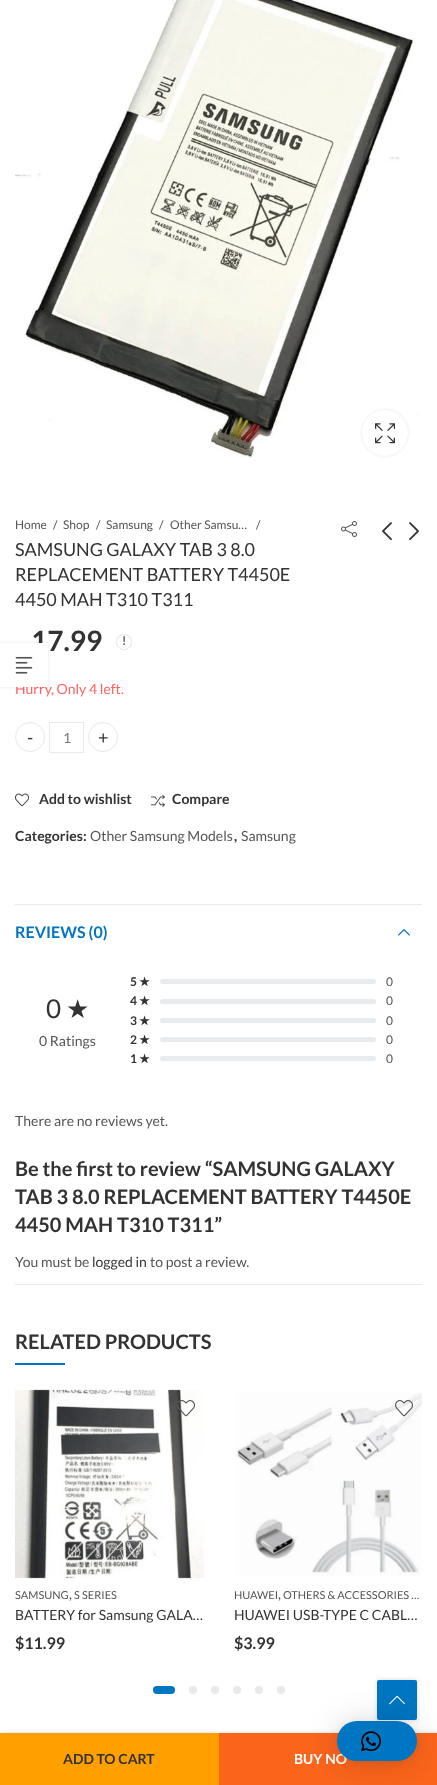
<?xml version="1.0" encoding="UTF-8"?>
<svg xmlns="http://www.w3.org/2000/svg" width="437" height="1785">
    <defs>
        <filter id="blur1" x="-50%" y="-200%" width="200%" height="500%"><feGaussianBlur stdDeviation="1.5"/></filter>
        <clipPath id="clip1"><path d="M 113 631 H 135 V 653 H 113 Z M 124 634 C 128.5 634 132 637.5 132 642 C 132 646.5 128.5 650 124 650 C 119.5 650 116 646.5 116 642 C 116 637.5 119.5 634 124 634 Z" clip-rule="evenodd"/></clipPath>
        <filter id="blur2" x="-50%" y="-200%" width="200%" height="500%"><feGaussianBlur stdDeviation="0.5"/></filter>
        <filter id="blur3" x="-50%" y="-200%" width="200%" height="500%"><feGaussianBlur stdDeviation="2"/></filter>
        <filter id="blur4" x="-50%" y="-200%" width="200%" height="500%"><feGaussianBlur stdDeviation="2.5"/></filter>
        <filter id="blur5" x="-50%" y="-200%" width="200%" height="500%"><feGaussianBlur stdDeviation="16"/></filter>
        <filter id="blur6" x="-50%" y="-200%" width="200%" height="500%"><feGaussianBlur stdDeviation="3"/></filter>
    </defs>
    <rect width="100%" height="100%" fill="#FFFFFF"/>
    <image x="15" y="0" width="404" height="458" href="img_01.png"/>
    <rect x="362" y="410" width="46" height="46" rx="23" fill="#000000" fill-opacity="0.1" filter="url(#blur1)"/>
    <circle cx="385" cy="433" r="23" fill="#FFFFFF"/>
    <image x="375" y="423" width="20" height="21" href="img_02.png"/>
    <text x="15" y="529" font-family="Lato" font-size="12" fill="#555555">Home</text>
    <text x="53" y="529" font-family="Lato" font-size="12" fill="#555555">/</text>
    <text x="63" y="529" font-family="Lato" font-size="12" fill="#555555">Shop</text>
    <text x="96" y="529" font-family="Lato" font-size="12" fill="#555555">/</text>
    <text x="106" y="529" font-family="Lato" font-size="12" fill="#555555">Samsung</text>
    <text x="159" y="529" font-family="Lato" font-size="12" fill="#555555">/</text>
    <text x="170" y="529" font-family="Lato" font-size="12" fill="#555555">Other Samsu…</text>
    <text x="256" y="529" font-family="Lato" font-size="12" fill="#555555">/</text>
    <image x="341" y="521" width="16" height="16" href="img_03.png"/>
    <image x="382" y="522" width="10" height="19" href="img_04.png"/>
    <image x="409" y="522" width="10" height="19" href="img_05.png"/>
    <text font-family="Lato" font-size="18" fill="#333333">
        <tspan x="15" y="556">SAMSUNG GALAXY TAB 3 8.0</tspan>
        <tspan x="15" y="581">REPLACEMENT BATTERY T4450E</tspan>
        <tspan x="15" y="606">4450 MAH T310 T311</tspan>
    </text>
    <text x="31" y="651" font-family="Lato" font-size="28" font-weight="700" fill="#333333">17.99</text>
    <g clip-path="url(#clip1)">
        <rect x="116" y="634" width="16" height="16" rx="8" fill="#000000" fill-opacity="0.2" filter="url(#blur2)"/>
    </g>
    <circle cx="124" cy="642" r="7.5" fill="none" stroke="#E9E9E9"/>
    <text x="122" y="645" font-family="Lato" font-size="12" font-weight="700" fill="#555555">!</text>
    <text x="15" y="694" font-family="Lato" font-size="14" fill="#FF6161">Hurry, Only 4 left.</text>
    <circle cx="30" cy="737" r="14.5" fill="none" stroke="#E9E9E9"/>
    <text x="27" y="744" font-family="Lato" font-size="18" fill="#333333">-</text>
    <rect x="49.5" y="722.5" width="34" height="30" fill="none" stroke="#E9E9E9"/>
    <text x="63" y="743" font-family="Lato" font-size="14" fill="#777777">1</text>
    <circle cx="103" cy="737" r="14.5" fill="none" stroke="#E9E9E9"/>
    <text x="98" y="744" font-family="Lato" font-size="18" fill="#333333">+</text>
    <rect x="0" y="1733" width="219" height="52" fill="#000000" fill-opacity="0.15" filter="url(#blur3)"/>
    <rect x="0" y="1733" width="219" height="52" fill="#FF9F00"/>
    <text x="63" y="1764" font-family="Lato" font-size="14" font-weight="700" fill="#333333">ADD TO CART</text>
    <rect x="221" y="1733" width="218" height="52" fill="#000000" fill-opacity="0.15" filter="url(#blur3)"/>
    <rect x="219" y="1733" width="218" height="52" fill="#FB641B"/>
    <text x="294" y="1764" font-family="Lato" font-size="14" font-weight="700" fill="#FFFFFF">BUY NO</text>
    <image x="15" y="793" width="14" height="14" href="img_06.png"/>
    <text x="39" y="804" font-family="Lato" font-size="14" font-weight="700" fill="#333333">Add to wishlist</text>
    <image x="151" y="795" width="14" height="12" href="img_07.png"/>
    <text x="172" y="804" font-family="Lato" font-size="14" font-weight="700" fill="#333333">Compare</text>
    <text x="15" y="841" font-family="Lato" font-size="14" font-weight="700" fill="#333333">Categories:</text>
    <text x="90" y="841" font-family="Lato" font-size="14" fill="#555555">Other Samsung Models</text>
    <text x="234" y="841" font-family="Lato" font-size="14" font-weight="700" fill="#333333">,</text>
    <text x="241" y="841" font-family="Lato" font-size="14" fill="#555555">Samsung</text>
    <rect x="15" y="904" width="407" height="1" fill="#E9E9E9"/>
    <rect x="15" y="1284" width="407" height="1" fill="#E9E9E9"/>
    <text x="15" y="938" font-family="Lato" font-size="16" font-weight="700" fill="#0075C1">REVIEWS (0)</text>
    <image x="398" y="929" width="12" height="7" href="img_08.png"/>
    <text x="46" y="1018" font-family="Lato" font-size="26" fill="#333333">0</text>
    <text x="66" y="1018" font-family="DejaVu Sans" font-size="26" fill="#333333">★</text>
    <text x="39" y="1046" font-family="Lato" font-size="14" fill="#555555">0 Ratings</text>
    <text x="130" y="986" font-family="Lato" font-size="12" font-weight="700" fill="#333333">5</text>
    <text x="139" y="986" font-family="DejaVu Sans" font-size="12" font-weight="700" fill="#333333">★</text>
    <rect x="160" y="979" width="216" height="5" rx="2.5" fill="#E9ECEF"/>
    <text x="386" y="986" font-family="Lato" font-size="12" fill="#555555">0</text>
    <text x="130" y="1005" font-family="Lato" font-size="12" font-weight="700" fill="#333333">4</text>
    <text x="139" y="1005" font-family="DejaVu Sans" font-size="12" font-weight="700" fill="#333333">★</text>
    <rect x="160" y="999" width="216" height="5" rx="2.5" fill="#E9ECEF"/>
    <text x="386" y="1005" font-family="Lato" font-size="12" fill="#555555">0</text>
    <text x="130" y="1025" font-family="Lato" font-size="12" font-weight="700" fill="#333333">3</text>
    <text x="139" y="1025" font-family="DejaVu Sans" font-size="12" font-weight="700" fill="#333333">★</text>
    <rect x="160" y="1018" width="216" height="5" rx="2.5" fill="#E9ECEF"/>
    <text x="386" y="1025" font-family="Lato" font-size="12" fill="#555555">0</text>
    <text x="130" y="1044" font-family="Lato" font-size="12" font-weight="700" fill="#333333">2</text>
    <text x="139" y="1044" font-family="DejaVu Sans" font-size="12" font-weight="700" fill="#333333">★</text>
    <rect x="160" y="1037" width="216" height="5" rx="2.5" fill="#E9ECEF"/>
    <text x="386" y="1044" font-family="Lato" font-size="12" fill="#555555">0</text>
    <text x="130" y="1063" font-family="Lato" font-size="12" font-weight="700" fill="#333333">1</text>
    <text x="139" y="1063" font-family="DejaVu Sans" font-size="12" font-weight="700" fill="#333333">★</text>
    <rect x="160" y="1056" width="216" height="5" rx="2.5" fill="#E9ECEF"/>
    <text x="386" y="1063" font-family="Lato" font-size="12" fill="#555555">0</text>
    <text x="15" y="1126" font-family="Lato" font-size="14" fill="#555555">There are no reviews yet.</text>
    <text font-family="Lato" font-size="20" font-weight="700" fill="#333333">
        <tspan x="15" y="1176">Be the first to review “SAMSUNG GALAXY</tspan>
        <tspan x="15" y="1204">TAB 3 8.0 REPLACEMENT BATTERY T4450E</tspan>
        <tspan x="15" y="1232">4450 MAH T310 T311”</tspan>
    </text>
    <text x="15" y="1267" font-family="Lato" font-size="14" fill="#555555">You must be</text>
    <text x="92" y="1267" font-family="Lato" font-size="14" fill="#333333">logged in</text>
    <text x="150" y="1267" font-family="Lato" font-size="14" fill="#555555">to post a review.</text>
    <text x="15" y="1349" font-family="Lato" font-size="20" font-weight="700" fill="#333333">RELATED PRODUCTS</text>
    <rect x="15" y="1363" width="50" height="2" fill="#0075C1"/>
    <image x="15" y="1389" width="189" height="190" href="img_09.png"/>
    <image x="177" y="1400" width="18" height="17" href="img_10.png"/>
    <text x="15" y="1599" font-family="Lato" font-size="11" fill="#555555">SAMSUNG</text>
    <text x="69" y="1599" font-family="Lato" font-size="14" fill="#555555">,</text>
    <text x="74" y="1599" font-family="Lato" font-size="11" fill="#555555">S SERIES</text>
    <text x="15" y="1620" font-family="Lato" font-size="14" fill="#333333">BATTERY for Samsung GALA…</text>
    <text x="15" y="1649" font-family="Lato" font-size="16" font-weight="700" fill="#333333">$11.99</text>
    <image x="236" y="1392" width="186" height="184" href="img_11.png"/>
    <image x="395" y="1400" width="18" height="17" href="img_12.png"/>
    <text x="234" y="1599" font-family="Lato" font-size="11" fill="#555555">HUAWEI</text>
    <text x="278" y="1599" font-family="Lato" font-size="14" fill="#555555">,</text>
    <text x="283" y="1599" font-family="Lato" font-size="11" fill="#555555">OTHERS &amp; ACCESSORIES …</text>
    <text x="234" y="1620" font-family="Lato" font-size="14" fill="#333333">HUAWEI USB-TYPE C CABL…</text>
    <text x="234" y="1649" font-family="Lato" font-size="16" font-weight="700" fill="#333333">$3.99</text>
    <rect x="153" y="1686" width="22" height="8" rx="4" fill="#0075C1"/>
    <circle cx="193" cy="1690" r="4" fill="#E9E9E9"/>
    <circle cx="215" cy="1690" r="4" fill="#E9E9E9"/>
    <circle cx="237" cy="1690" r="4" fill="#E9E9E9"/>
    <circle cx="259" cy="1690" r="4" fill="#E9E9E9"/>
    <circle cx="281" cy="1690" r="4" fill="#E9E9E9"/>
    <rect x="0" y="643" width="48" height="44" fill="#000000" fill-opacity="0.1" filter="url(#blur1)"/>
    <rect x="0" y="643" width="48" height="44" fill="#FFFFFF"/>
    <image x="15" y="656" width="18" height="18" href="img_13.png"/>
    <rect x="377" y="1680" width="40" height="40" rx="2" fill="#000000" fill-opacity="0.15" filter="url(#blur4)"/>
    <rect x="377" y="1680" width="40" height="40" rx="2" fill="#0075C1"/>
    <image x="389" y="1695" width="16" height="10" href="img_14.png"/>
    <rect x="337" y="1723" width="80" height="40" rx="20" fill="#000000" fill-opacity="0.16" filter="url(#blur5)"/>
    <rect x="337" y="1722" width="80" height="40" rx="20" fill="#000000" fill-opacity="0.06" filter="url(#blur6)"/>
    <rect x="337" y="1721" width="80" height="40" rx="20" fill="#0075C1"/>
    <image x="361" y="1731" width="20" height="21" href="img_15.png"/>
</svg>
